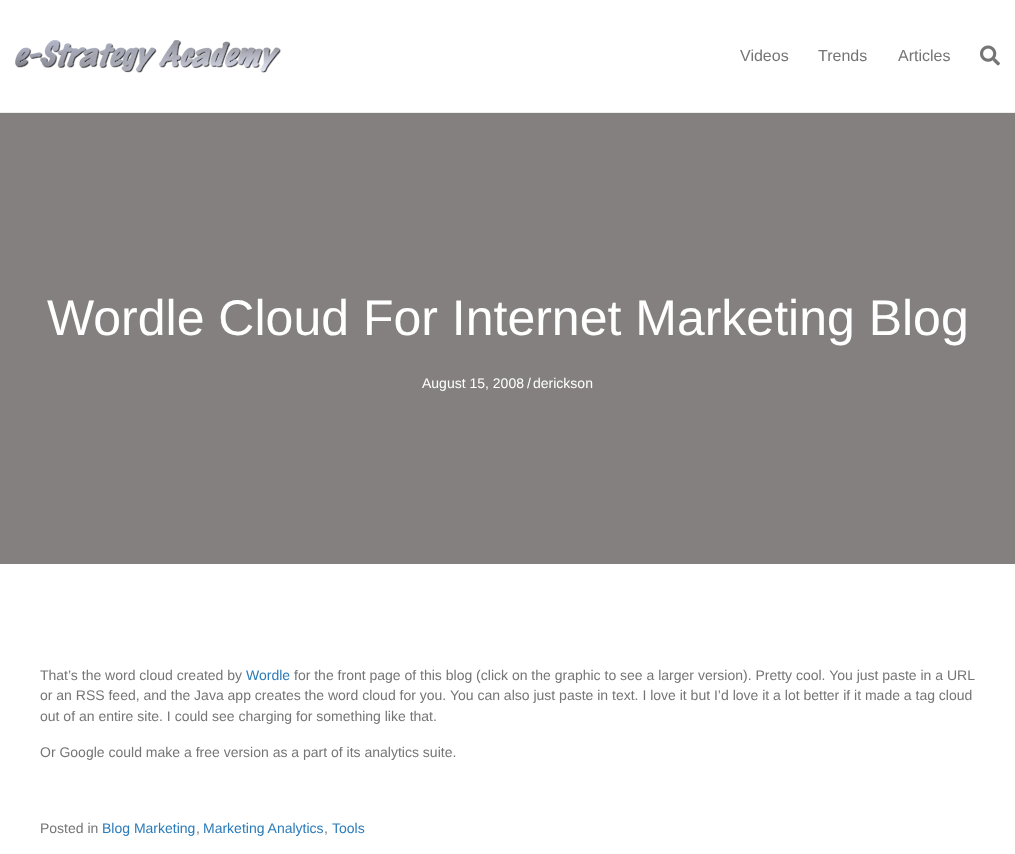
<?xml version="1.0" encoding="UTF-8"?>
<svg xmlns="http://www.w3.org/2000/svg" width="1015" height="854">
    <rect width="100%" height="100%" fill="#FFFFFF"/>
    <rect x="0" y="112" width="1015" height="1" fill="#EDEDED"/>
    <image x="15" y="39" width="266" height="34" href="img_01.png"/>
    <text x="740" y="61" font-family="Liberation Sans" font-size="16" fill="#757575">Videos</text>
    <text x="818" y="61" font-family="Liberation Sans" font-size="16" fill="#757575">Trends</text>
    <text x="898" y="61" font-family="Liberation Sans" font-size="16" fill="#757575">Articles</text>
    <image x="980" y="45" width="20" height="21" href="img_02.png"/>
    <rect x="0" y="113" width="1015" height="451" fill="#858080"/>
    <text x="47" y="335" font-family="Liberation Sans" font-size="50" fill="#FFFFFF">Wordle Cloud For Internet Marketing Blog</text>
    <text x="422" y="388" font-family="Liberation Sans" font-size="14" fill="#FFFFFF">August 15, 2008</text>
    <text x="527" y="388" font-family="Liberation Sans" font-size="14" fill="#FFFFFF">/</text>
    <text x="533" y="388" font-family="Liberation Sans" font-size="14" fill="#FFFFFF">derickson</text>
    <text x="40" y="680" font-family="Liberation Sans" font-size="14" fill="#757575">That’s the word cloud created by</text>
    <text x="246" y="680" font-family="Liberation Sans" font-size="14" fill="#2B7BB9">Wordle</text>
    <text x="294" y="680" font-family="Liberation Sans" font-size="14" fill="#757575">for the front page of this blog (click on the graphic to see a larger version). Pretty cool. You just paste in a URL</text>
    <text font-family="Liberation Sans" font-size="14" fill="#757575">
        <tspan x="40" y="700">or an RSS feed, and the Java app creates the word cloud for you. You can also just paste in text. I love it but I’d love it a lot better if it made a tag cloud</tspan>
        <tspan x="40" y="721">out of an entire site. I could see charging for something like that.</tspan>
    </text>
    <text x="40" y="757" font-family="Liberation Sans" font-size="14" fill="#757575">Or Google could make a free version as a part of its analytics suite.</text>
    <text x="40" y="833" font-family="Liberation Sans" font-size="14" fill="#757575">Posted in</text>
    <text x="102" y="833" font-family="Liberation Sans" font-size="14" fill="#2B7BB9">Blog Marketing</text>
    <text x="196" y="833" font-family="Liberation Sans" font-size="14" fill="#757575">,</text>
    <text x="203" y="833" font-family="Liberation Sans" font-size="14" fill="#2B7BB9">Marketing Analytics</text>
    <text x="324" y="833" font-family="Liberation Sans" font-size="14" fill="#757575">,</text>
    <text x="332" y="833" font-family="Liberation Sans" font-size="14" fill="#2B7BB9">Tools</text>
</svg>
